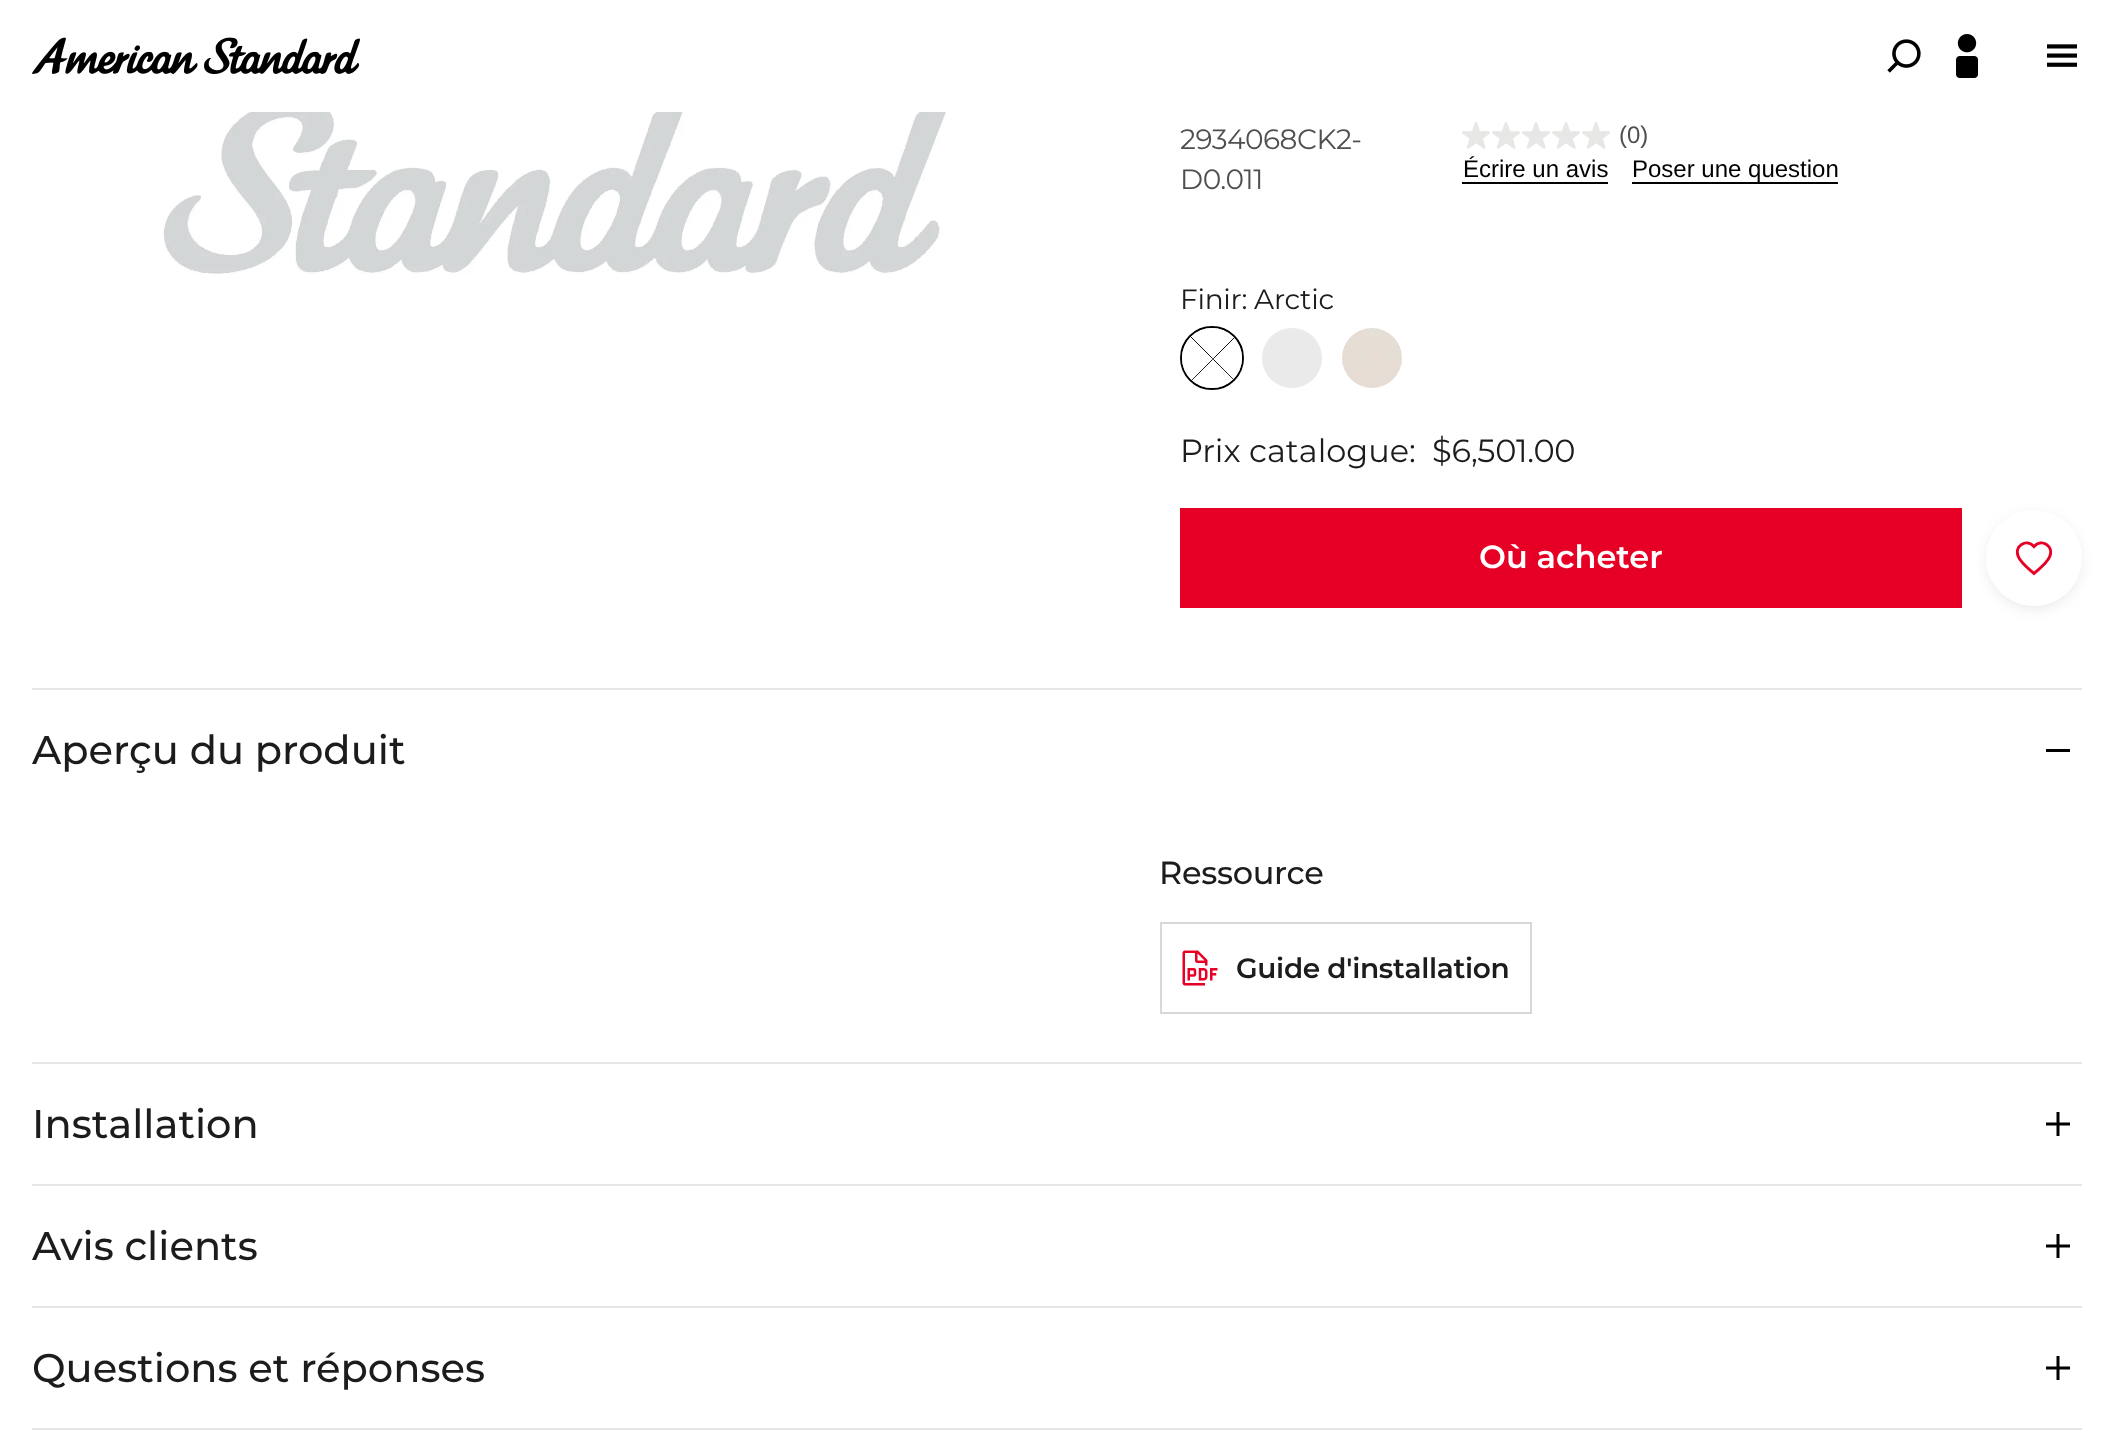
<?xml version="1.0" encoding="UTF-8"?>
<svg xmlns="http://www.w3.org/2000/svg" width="2114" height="1456">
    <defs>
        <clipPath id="clip1"><path d="M 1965 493 H 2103 V 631 H 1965 Z M 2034 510 C 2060.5 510 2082 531.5 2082 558 C 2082 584.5 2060.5 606 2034 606 C 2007.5 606 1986 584.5 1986 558 C 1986 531.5 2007.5 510 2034 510 Z" clip-rule="evenodd"/></clipPath>
        <filter id="blur1" x="-50%" y="-200%" width="200%" height="500%"><feGaussianBlur stdDeviation="8"/></filter>
    </defs>
    <rect width="100%" height="100%" fill="#FFFFFF"/>
    <image x="32" y="37" width="328" height="37" href="img_01.png"/>
    <image x="1887" y="39" width="34" height="34" href="img_02.png"/>
    <image x="1956" y="34" width="22" height="44" href="img_03.png"/>
    <image x="2047" y="44" width="30" height="23" href="img_04.png"/>
    <image x="32" y="112" width="1044" height="496" href="img_05.png"/>
    <text font-family="Montserrat" font-size="28" letter-spacing="-0.5" fill="#4F4F4F">
        <tspan x="1180" y="149">2934068CK2-</tspan>
        <tspan x="1180" y="189">D0.011</tspan>
    </text>
    <image x="1462" y="122" width="28" height="27" href="img_06.png"/>
    <image x="1492" y="122" width="28" height="27" href="img_06.png"/>
    <image x="1522" y="122" width="28" height="27" href="img_06.png"/>
    <image x="1552" y="122" width="28" height="27" href="img_06.png"/>
    <image x="1582" y="122" width="28" height="27" href="img_06.png"/>
    <text x="1619" y="143" font-family="Liberation Sans" font-size="24" fill="#4F4F4F">(0)</text>
    <text x="1463" y="177" font-family="Liberation Sans" font-size="24" fill="#000000">Écrire un avis</text>
    <rect x="1462" y="182" width="146" height="2" fill="#000000"/>
    <text x="1632" y="177" font-family="Liberation Sans" font-size="24" fill="#000000">Poser une question</text>
    <rect x="1632" y="182" width="206" height="2" fill="#000000"/>
    <text x="1180" y="309" font-family="Montserrat" font-size="28" letter-spacing="-0.3" fill="#1C1C1E">Finir: Arctic</text>
    <circle cx="1212" cy="358" r="31" fill="none" stroke="#000000" stroke-width="2"/>
    <image x="1182" y="328" width="60" height="60" href="img_07.png"/>
    <image x="1262" y="328" width="60" height="60" href="img_08.png"/>
    <image x="1342" y="328" width="60" height="60" href="img_09.png"/>
    <text x="1180" y="462" font-family="Montserrat" font-size="32" fill="#1C1C1E">Prix catalogue:</text>
    <text x="1432" y="462" font-family="Montserrat" font-size="32" letter-spacing="-0.3" fill="#1C1C1E">$6,501.00</text>
    <rect x="1180" y="508" width="782" height="100" fill="#E70025"/>
    <text x="1479" y="568" font-family="Montserrat" font-size="32" font-weight="600" fill="#FFFFFF">Où acheter</text>
    <g clip-path="url(#clip1)">
        <rect x="1990" y="518" width="88" height="88" rx="44" fill="#000000" fill-opacity="0.12" filter="url(#blur1)"/>
    </g>
    <path d="M 2034 573.5 C 2029 569 2021 563 2018.5 557 C 2013.5 546 2026.5 538 2034 546.5 C 2041.5 538 2054.5 546 2049.5 557 C 2047 563 2039 569 2034 573.5 Z" fill="none" stroke="#E70025" stroke-width="3"/>
    <rect x="32" y="688" width="2050" height="2" fill="#E7E7E7"/>
    <rect x="32" y="1062" width="2050" height="2" fill="#E7E7E7"/>
    <text x="32" y="764" font-family="Montserrat" font-size="40" font-weight="500" fill="#1C1C1E">Aperçu du produit</text>
    <rect x="2046" y="749" width="24" height="3" fill="#000000"/>
    <text x="1159" y="884" font-family="Montserrat" font-size="32" font-weight="500" letter-spacing="-0.3" fill="#1C1C1E">Ressource</text>
    <rect x="1161" y="923" width="370" height="90" fill="none" stroke="#D8D8DB" stroke-width="2"/>
    <image x="1182" y="950" width="36" height="36" href="img_10.png"/>
    <text x="1236" y="978" font-family="Montserrat" font-size="28" font-weight="600" letter-spacing="-0.3" fill="#1C1C1E">Guide d'installation</text>
    <rect x="32" y="1184" width="2050" height="2" fill="#E7E7E7"/>
    <text x="32" y="1138" font-family="Montserrat" font-size="40" font-weight="500" fill="#1C1C1E">Installation</text>
    <image x="2046" y="1112" width="24" height="24" href="img_11.png"/>
    <rect x="32" y="1306" width="2050" height="2" fill="#E7E7E7"/>
    <text x="32" y="1260" font-family="Montserrat" font-size="40" font-weight="500" fill="#1C1C1E">Avis clients</text>
    <image x="2046" y="1234" width="24" height="24" href="img_11.png"/>
    <rect x="32" y="1428" width="2050" height="2" fill="#E7E7E7"/>
    <text x="32" y="1382" font-family="Montserrat" font-size="40" font-weight="500" fill="#1C1C1E">Questions et réponses</text>
    <image x="2046" y="1356" width="24" height="24" href="img_11.png"/>
</svg>
